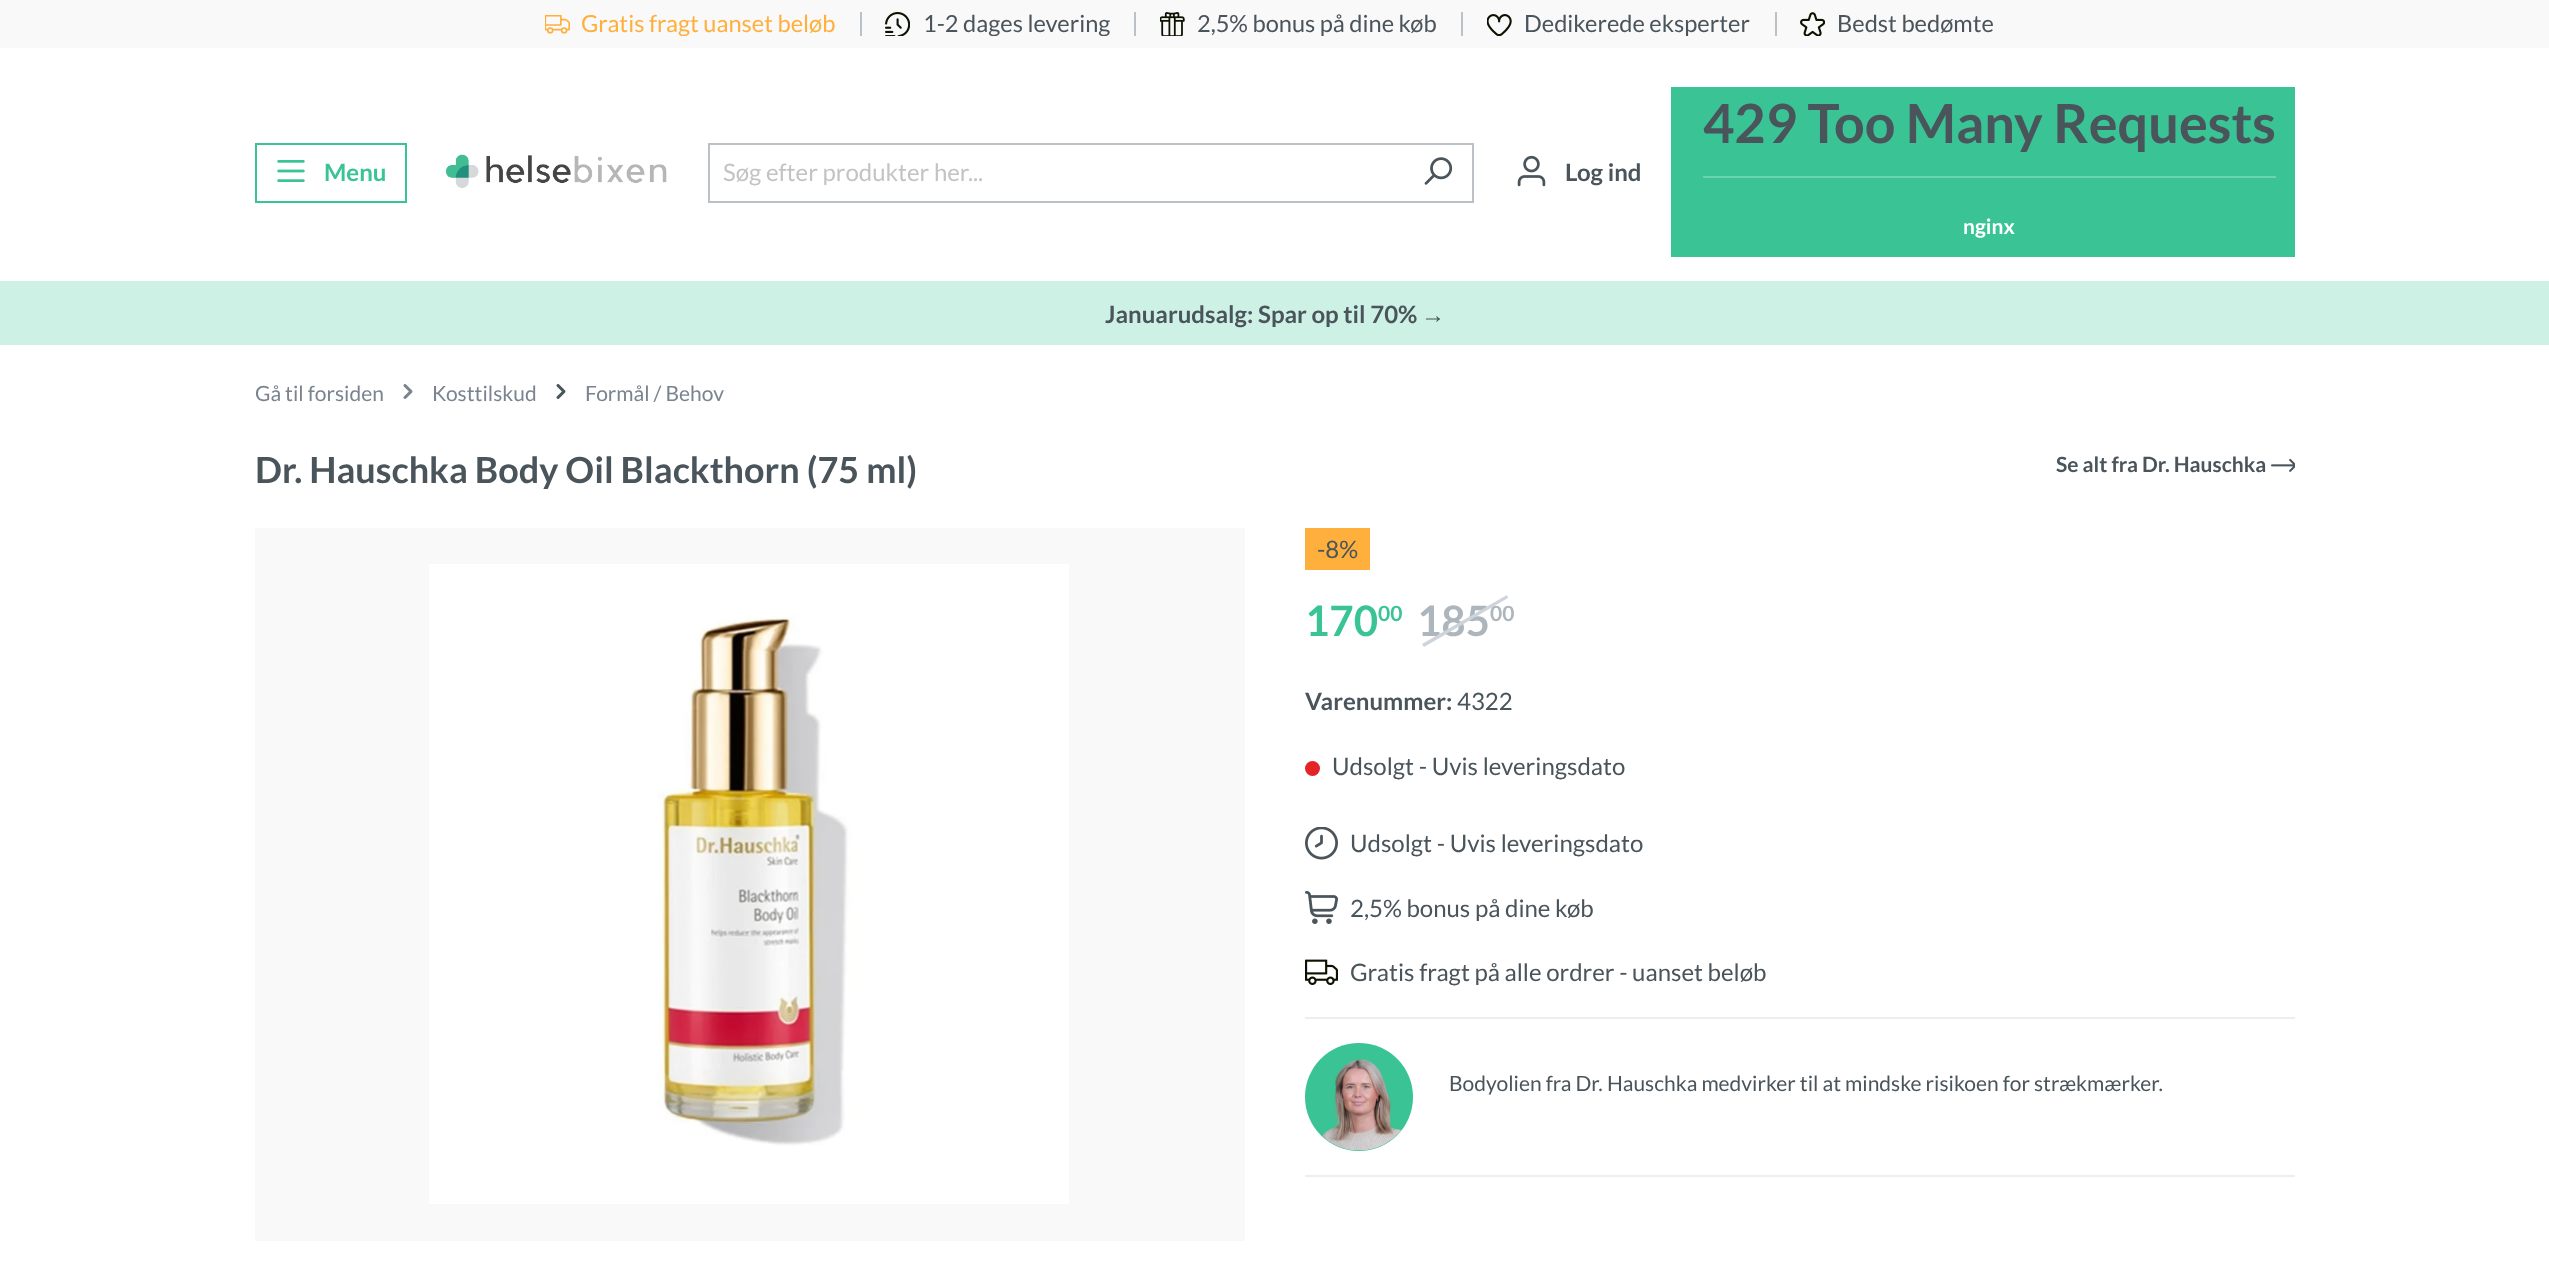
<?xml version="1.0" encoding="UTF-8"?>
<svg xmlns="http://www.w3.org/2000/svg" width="2549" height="1282">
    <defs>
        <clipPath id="clip1"><rect x="582" y="12" width="254" height="24"/></clipPath>
        <clipPath id="clip2"><rect x="923" y="12" width="187" height="24"/></clipPath>
    </defs>
    <rect width="100%" height="100%" fill="#FFFFFF"/>
    <rect x="0" y="0" width="2549" height="48" fill="#F9F9F9"/>
    <rect x="860" y="12" width="2" height="24" fill="#BCC1C7"/>
    <image x="545" y="15" width="25" height="19" href="img_01.png"/>
    <g clip-path="url(#clip1)">
        <text x="581" y="32" font-family="Lato" font-size="23.6" fill="#FFAF3C">Gratis fragt uanset beløb</text>
    </g>
    <rect x="1134" y="12" width="2" height="24" fill="#BCC1C7"/>
    <image x="885" y="12" width="25" height="24" href="img_02.png"/>
    <g clip-path="url(#clip2)">
        <text x="923" y="32" font-family="Lato" font-size="23.6" fill="#4A545B">1-2 dages levering</text>
    </g>
    <rect x="1461" y="12" width="2" height="24" fill="#BCC1C7"/>
    <image x="1160" y="12" width="25" height="24" href="img_03.png"/>
    <text x="1197" y="32" font-family="Lato" font-size="23.6" fill="#4A545B">2,5% bonus på dine køb</text>
    <rect x="1775" y="12" width="2" height="24" fill="#BCC1C7"/>
    <image x="1487" y="14" width="25" height="22" href="img_04.png"/>
    <text x="1524" y="32" font-family="Lato" font-size="23.6" fill="#4A545B">Dedikerede eksperter</text>
    <image x="1800" y="12" width="25" height="24" href="img_05.png"/>
    <text x="1837" y="32" font-family="Lato" font-size="23.6" fill="#4A545B">Bedst bedømte</text>
    <rect x="256" y="144" width="150" height="58" fill="none" stroke="#3AC495" stroke-width="2"/>
    <image x="277" y="160" width="28" height="22" href="img_06.png"/>
    <text x="324" y="181" font-family="Lato" font-size="24" font-weight="700" fill="#3AC495">Menu</text>
    <image x="446" y="154" width="221" height="34" href="img_07.png"/>
    <rect x="708" y="143" width="765" height="2" fill="#BCC1C7"/>
    <rect x="708" y="201" width="696" height="2" fill="#BCC1C7"/>
    <rect x="708" y="143" width="2" height="60" fill="#BCC1C7"/>
    <text x="723" y="181" font-family="Lato" font-size="24" fill="#C3C3C3">Søg efter produkter her...</text>
    <rect x="1472" y="143" width="2" height="60" fill="#BCC1C7"/>
    <rect x="1403" y="201" width="70" height="2" fill="#BCC1C7"/>
    <image x="1424" y="157" width="29" height="28" href="img_08.png"/>
    <image x="1517" y="155" width="29" height="32" href="img_09.png"/>
    <text x="1565" y="181" font-family="Lato" font-size="24" font-weight="700" fill="#4A545B">Log ind</text>
    <rect x="1671" y="87" width="624" height="170" fill="#3AC495"/>
    <text x="1703" y="143" font-family="Lato" font-size="54" font-weight="700" fill="#4A545B">429 Too Many Requests</text>
    <rect x="1703" y="176" width="573" height="2" fill="#6BD3B0"/>
    <text x="1963" y="234" font-family="Lato" font-size="21" font-weight="700" fill="#FFFFFF">nginx</text>
    <rect x="0" y="281" width="2549" height="64" fill="#CEF1E5"/>
    <text x="1105" y="323" font-family="Lato" font-size="24" font-weight="700" fill="#4A545B">Januarudsalg: Spar op til 70%</text>
    <text x="1421" y="323" font-family="Liberation Sans" font-size="24" font-weight="700" fill="#4A545B">→</text>
    <text x="255" y="401" font-family="Lato" font-size="21" fill="#798490">Gå til forsiden</text>
    <image x="403" y="384" width="10" height="15" href="img_10.png"/>
    <text x="432" y="401" font-family="Lato" font-size="21" fill="#798490">Kosttilskud</text>
    <image x="556" y="384" width="10" height="15" href="img_11.png"/>
    <text x="585" y="401" font-family="Lato" font-size="21" fill="#798490">Formål / Behov</text>
    <text x="255" y="483" font-family="Lato" font-size="36" font-weight="700" fill="#4A545B">Dr. Hauschka Body Oil Blackthorn (75 ml)</text>
    <text x="2056" y="472" font-family="Lato" font-size="21" font-weight="700" fill="#4A545B">Se alt fra Dr. Hauschka</text>
    <image x="2271" y="458" width="24" height="14" href="img_12.png"/>
    <rect x="255" y="528" width="990" height="713" fill="#F9F9F9"/>
    <image x="429" y="564" width="640" height="640" href="img_13.png"/>
    <rect x="1305" y="528" width="65" height="42" fill="#FFAF3C"/>
    <text x="1317" y="558" font-family="Lato" font-size="24" fill="#4A545B">-8%</text>
    <text x="1305" y="636" font-family="Lato" font-size="42" font-weight="700" fill="#3AC495">170</text>
    <text x="1378" y="621" font-family="Lato" font-size="21" font-weight="700" fill="#3AC495">00</text>
    <text x="1417" y="636" font-family="Lato" font-size="42" font-weight="700" fill="#ADB5BD">185</text>
    <path d="M 1422 644 L 1507 595 L 1508 598 L 1424 647 Z" fill="#CED4DA"/>
    <text x="1490" y="621" font-family="Lato" font-size="21" font-weight="700" fill="#ADB5BD">00</text>
    <text x="1305" y="710" font-family="Lato" font-size="24" font-weight="700" fill="#4A545B">Varenummer:</text>
    <text x="1457" y="710" font-family="Lato" font-size="24" fill="#4A545B">4322</text>
    <circle cx="1312.5" cy="768.5" r="7.5" fill="#E52427"/>
    <text x="1332" y="775" font-family="Lato" font-size="24" fill="#4A545B">Udsolgt - Uvis leveringsdato</text>
    <image x="1305" y="827" width="33" height="33" href="img_14.png"/>
    <text x="1350" y="852" font-family="Lato" font-size="24" fill="#4A545B">Udsolgt - Uvis leveringsdato</text>
    <image x="1305" y="891" width="33" height="33" href="img_15.png"/>
    <text x="1350" y="917" font-family="Lato" font-size="24" fill="#4A545B">2,5% bonus på dine køb</text>
    <image x="1305" y="959" width="33" height="26" href="img_16.png"/>
    <text x="1350" y="981" font-family="Lato" font-size="24" fill="#4A545B">Gratis fragt på alle ordrer - uanset beløb</text>
    <rect x="1305" y="1017" width="990" height="2" fill="#EDEEEF"/>
    <rect x="1305" y="1175" width="990" height="2" fill="#EDEEEF"/>
    <circle cx="1359" cy="1097" r="54" fill="#3AC495"/>
    <image x="1322" y="1059" width="79" height="92" href="img_17.png"/>
    <text x="1449" y="1091" font-family="Lato" font-size="21" fill="#4A545B">Bodyolien fra Dr. Hauschka medvirker til at mindske risikoen for strækmærker.</text>
</svg>
